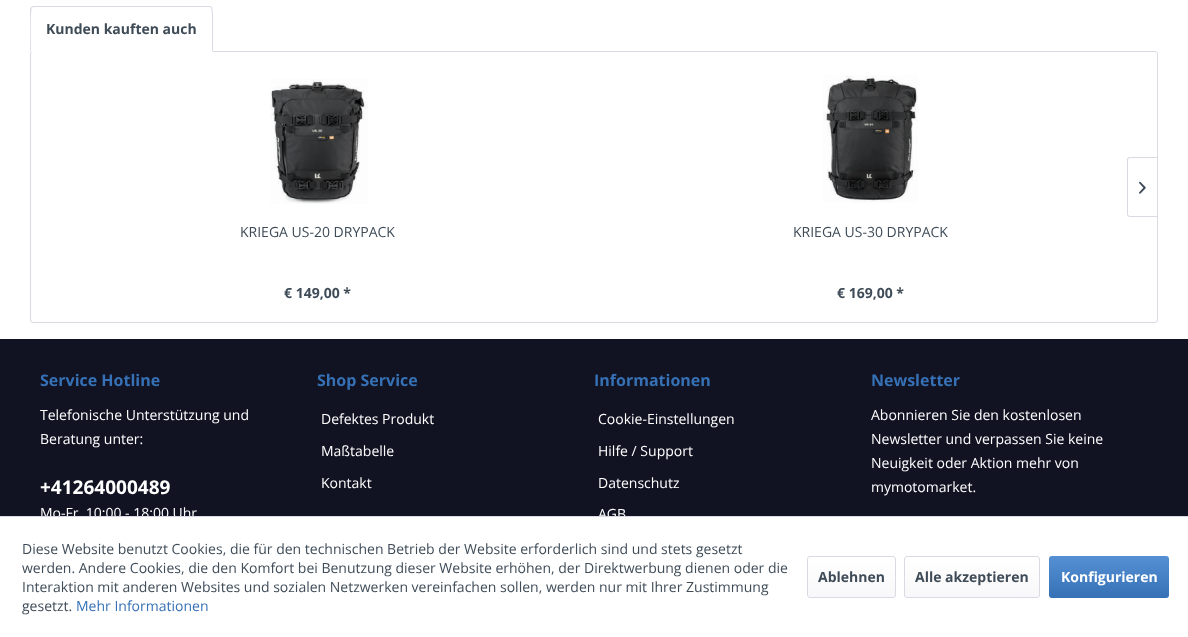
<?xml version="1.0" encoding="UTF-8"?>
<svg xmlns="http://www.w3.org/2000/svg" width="1188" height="637">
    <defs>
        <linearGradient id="g1" gradientUnits="userSpaceOnUse" x1="852" y1="557" x2="852" y2="597"><stop offset="0" stop-color="#FFFFFF"/><stop offset="1" stop-color="#F8F8FA"/></linearGradient>
        <linearGradient id="g2" gradientUnits="userSpaceOnUse" x1="972" y1="557" x2="972" y2="597"><stop offset="0" stop-color="#FFFFFF"/><stop offset="1" stop-color="#F8F8FA"/></linearGradient>
        <linearGradient id="g3" gradientUnits="userSpaceOnUse" x1="1109" y1="556" x2="1109" y2="598"><stop offset="0" stop-color="#5690D4"/><stop offset="1" stop-color="#3671B6"/></linearGradient>
    </defs>
    <rect width="100%" height="100%" fill="#FFFFFF"/>
    <rect x="30.5" y="51.5" width="1127" height="271" rx="2.5" fill="none" stroke="#DADAE5"/>
    <path d="M 33 6 H 210 C 211.5 6 213 7.5 213 9 V 52 H 30 V 9 C 30 7.5 31.5 6 33 6 Z" fill="#FFFFFF"/>
    <path d="M 33 6 L 31 7 L 32 8 L 33 7 H 210 L 211 8 L 212 7 L 210 6 Z" fill="#DADAE5"/>
    <path d="M 213 52 C 213 47 214 9 212 7 L 211 8 C 213 9 212 46 212 51 Z" fill="#DADAE5"/>
    <path d="M 213 52 L 212 51 H 31 L 30 52 Z" fill="#FFFFFF"/>
    <path d="M 30 52 L 31 51 C 31 46 30 9 32 8 L 31 7 L 30 9 Z" fill="#DADAE5"/>
    <text x="46" y="34" font-family="Open Sans" font-size="14" font-weight="700" fill="#3F4C58">Kunden kauften auch</text>
    <path d="M 1130 157 H 1157 V 217 H 1130 C 1128 217 1127 216 1127 214 V 160 C 1127 158 1128 157 1130 157 Z M 1130 158 H 1157 V 216 H 1130 C 1129 216 1128 215 1128 214 V 160 C 1128 159 1129 158 1130 158 Z" fill="#DADAE5" fill-rule="evenodd"/>
    <image x="1139" y="181" width="7" height="13" href="img_01.png"/>
    <image x="270" y="79" width="98" height="125" href="img_02.png"/>
    <text x="240" y="237" font-family="Open Sans" font-size="14" fill="#3F4C58">KRIEGA US-20 DRYPACK</text>
    <text x="284" y="298" font-family="Open Sans" font-size="14" font-weight="700" fill="#3F4C58">€ 149,00 *</text>
    <image x="823" y="75" width="95" height="128" href="img_03.png"/>
    <text x="793" y="237" font-family="Open Sans" font-size="14" fill="#3F4C58">KRIEGA US-30 DRYPACK</text>
    <text x="837" y="298" font-family="Open Sans" font-size="14" font-weight="700" fill="#3F4C58">€ 169,00 *</text>
    <rect x="0" y="339" width="1188" height="177" fill="#111222"/>
    <text x="40" y="386" font-family="Open Sans" font-size="16" font-weight="700" fill="#3671B6">Service Hotline</text>
    <text font-family="Open Sans" font-size="14" fill="#FFFFFF">
        <tspan x="40" y="420">Telefonische Unterstützung und</tspan>
        <tspan x="40" y="444">Beratung unter:</tspan>
    </text>
    <text x="40" y="494" font-family="Open Sans" font-size="19" font-weight="700" fill="#FFFFFF">+41264000489</text>
    <text x="40" y="518" font-family="Open Sans" font-size="14" fill="#FFFFFF">Mo-Fr, 10:00 - 18:00 Uhr</text>
    <text x="317" y="386" font-family="Open Sans" font-size="16" font-weight="700" fill="#3671B6">Shop Service</text>
    <text x="321" y="424" font-family="Open Sans" font-size="14" fill="#FFFFFF">Defektes Produkt</text>
    <text x="321" y="456" font-family="Open Sans" font-size="14" fill="#FFFFFF">Maßtabelle</text>
    <text x="321" y="488" font-family="Open Sans" font-size="14" fill="#FFFFFF">Kontakt</text>
    <text x="594" y="386" font-family="Open Sans" font-size="16" font-weight="700" fill="#3671B6">Informationen</text>
    <text x="598" y="424" font-family="Open Sans" font-size="14" fill="#FFFFFF">Cookie-Einstellungen</text>
    <text x="598" y="456" font-family="Open Sans" font-size="14" fill="#FFFFFF">Hilfe / Support</text>
    <text x="598" y="488" font-family="Open Sans" font-size="14" fill="#FFFFFF">Datenschutz</text>
    <text x="598" y="519" font-family="Open Sans" font-size="14" fill="#FFFFFF">AGB</text>
    <text x="871" y="386" font-family="Open Sans" font-size="16" font-weight="700" fill="#3671B6">Newsletter</text>
    <text font-family="Open Sans" font-size="14" fill="#FFFFFF">
        <tspan x="871" y="420">Abonnieren Sie den kostenlosen</tspan>
        <tspan x="871" y="444">Newsletter und verpassen Sie keine</tspan>
        <tspan x="871" y="468">Neuigkeit oder Aktion mehr von</tspan>
        <tspan x="871" y="492">mymotomarket.</tspan>
    </text>
    <rect x="0" y="516" width="1188" height="1" fill="#DADAE5"/>
    <text font-family="Open Sans" font-size="14" fill="#3F4C58">
        <tspan x="22" y="554">Diese Website benutzt Cookies, die für den technischen Betrieb der Website erforderlich sind und stets gesetzt</tspan>
        <tspan x="22" y="573">werden. Andere Cookies, die den Komfort bei Benutzung dieser Website erhöhen, der Direktwerbung dienen oder die</tspan>
        <tspan x="22" y="592">Interaktion mit anderen Websites und sozialen Netzwerken vereinfachen sollen, werden nur mit Ihrer Zustimmung</tspan>
        <tspan x="22" y="611">gesetzt.</tspan>
    </text>
    <text x="76" y="611" font-family="Open Sans" font-size="14" fill="#3671B6">Mehr Informationen</text>
    <rect x="808" y="557" width="87" height="40" rx="2" fill="url(#g1)"/>
    <rect x="807.5" y="556.5" width="88" height="41" rx="2.5" fill="none" stroke="#DADAE5"/>
    <text x="818" y="582" font-family="Open Sans" font-size="14" font-weight="700" fill="#3F4C58">Ablehnen</text>
    <rect x="905" y="557" width="134" height="40" rx="2" fill="url(#g2)"/>
    <rect x="904.5" y="556.5" width="135" height="41" rx="2.5" fill="none" stroke="#DADAE5"/>
    <text x="915" y="582" font-family="Open Sans" font-size="14" font-weight="700" fill="#3F4C58">Alle akzeptieren</text>
    <rect x="1049" y="556" width="120" height="42" rx="3" fill="url(#g3)"/>
    <text x="1061" y="582" font-family="Open Sans" font-size="14" font-weight="700" fill="#FFFFFF">Konfigurieren</text>
</svg>
